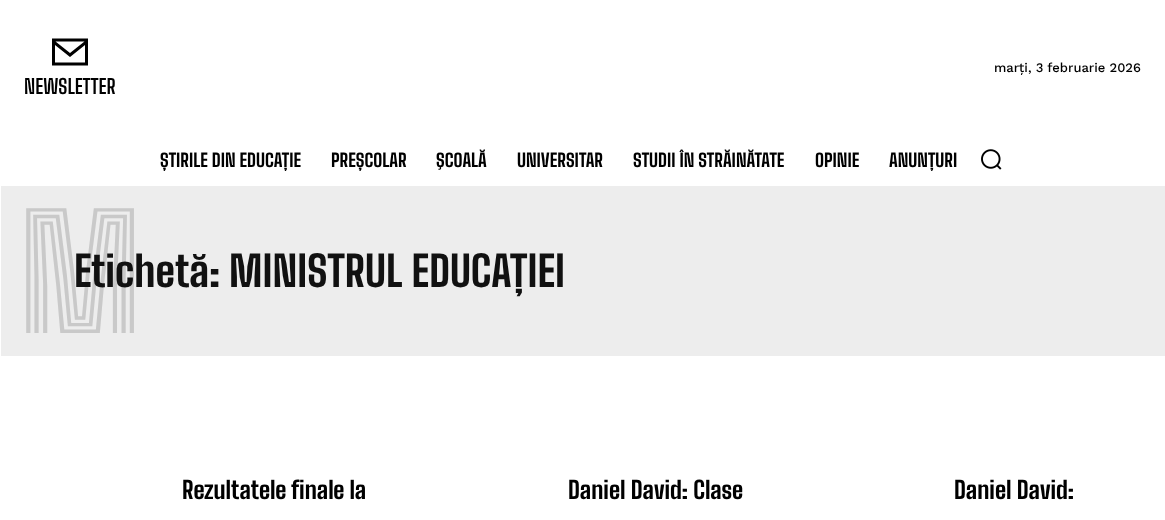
<?xml version="1.0" encoding="UTF-8"?>
<svg xmlns="http://www.w3.org/2000/svg" width="1165" height="520">
    <rect width="100%" height="100%" fill="#FFFFFF"/>
    <text x="994" y="72" font-family="Work Sans" font-size="13" font-weight="500" fill="#000000">marți, 3 februarie 2026</text>
    <path d="M 52 38.5 V 65.5 H 88 V 38.5 Z M 84.5 41.5 L 70 53 L 55.5 41.5 Z M 55 62.5 V 45 L 70 57 L 85 45 V 62.5 Z" fill="#000000"/>
    <text x="24" y="94" font-family="Big Shoulders Text" font-size="20" font-weight="700" fill="#000000">NEWSLETTER</text>
    <text x="160" y="167" font-family="Big Shoulders Text" font-size="18" font-weight="800" fill="#000000">ȘTIRILE DIN EDUCAȚIE</text>
    <text x="331" y="167" font-family="Big Shoulders Text" font-size="18" font-weight="800" fill="#000000">PREȘCOLAR</text>
    <text x="436" y="167" font-family="Big Shoulders Text" font-size="18" font-weight="800" fill="#000000">ŞCOALĂ</text>
    <text x="517" y="167" font-family="Big Shoulders Text" font-size="18" font-weight="800" fill="#000000">UNIVERSITAR</text>
    <text x="633" y="167" font-family="Big Shoulders Text" font-size="18" font-weight="800" fill="#000000">STUDII ÎN STRĂINĂTATE</text>
    <text x="815" y="167" font-family="Big Shoulders Text" font-size="18" font-weight="800" fill="#000000">OPINIE</text>
    <text x="889" y="167" font-family="Big Shoulders Text" font-size="18" font-weight="800" fill="#000000">ANUNȚURI</text>
    <image x="981" y="149" width="21" height="21" href="img_01.png"/>
    <rect x="1" y="186" width="1164" height="170" fill="#EDEDED"/>
    <text x="18" y="333" font-family="Big Shoulders Inline Text" font-size="156" font-weight="800" fill="#C9C9C9">M</text>
    <text x="74" y="287" font-family="Big Shoulders Text" font-size="42" font-weight="800" fill="#111111">Etichetă: MINISTRUL EDUCAȚIEI</text>
    <text x="182" y="499" font-family="Big Shoulders Text" font-size="24" font-weight="800" fill="#000000">Rezultatele finale la</text>
    <text x="568" y="499" font-family="Big Shoulders Text" font-size="24" font-weight="800" fill="#000000">Daniel David: Clase</text>
    <text x="954" y="499" font-family="Big Shoulders Text" font-size="24" font-weight="800" fill="#000000">Daniel David:</text>
</svg>
